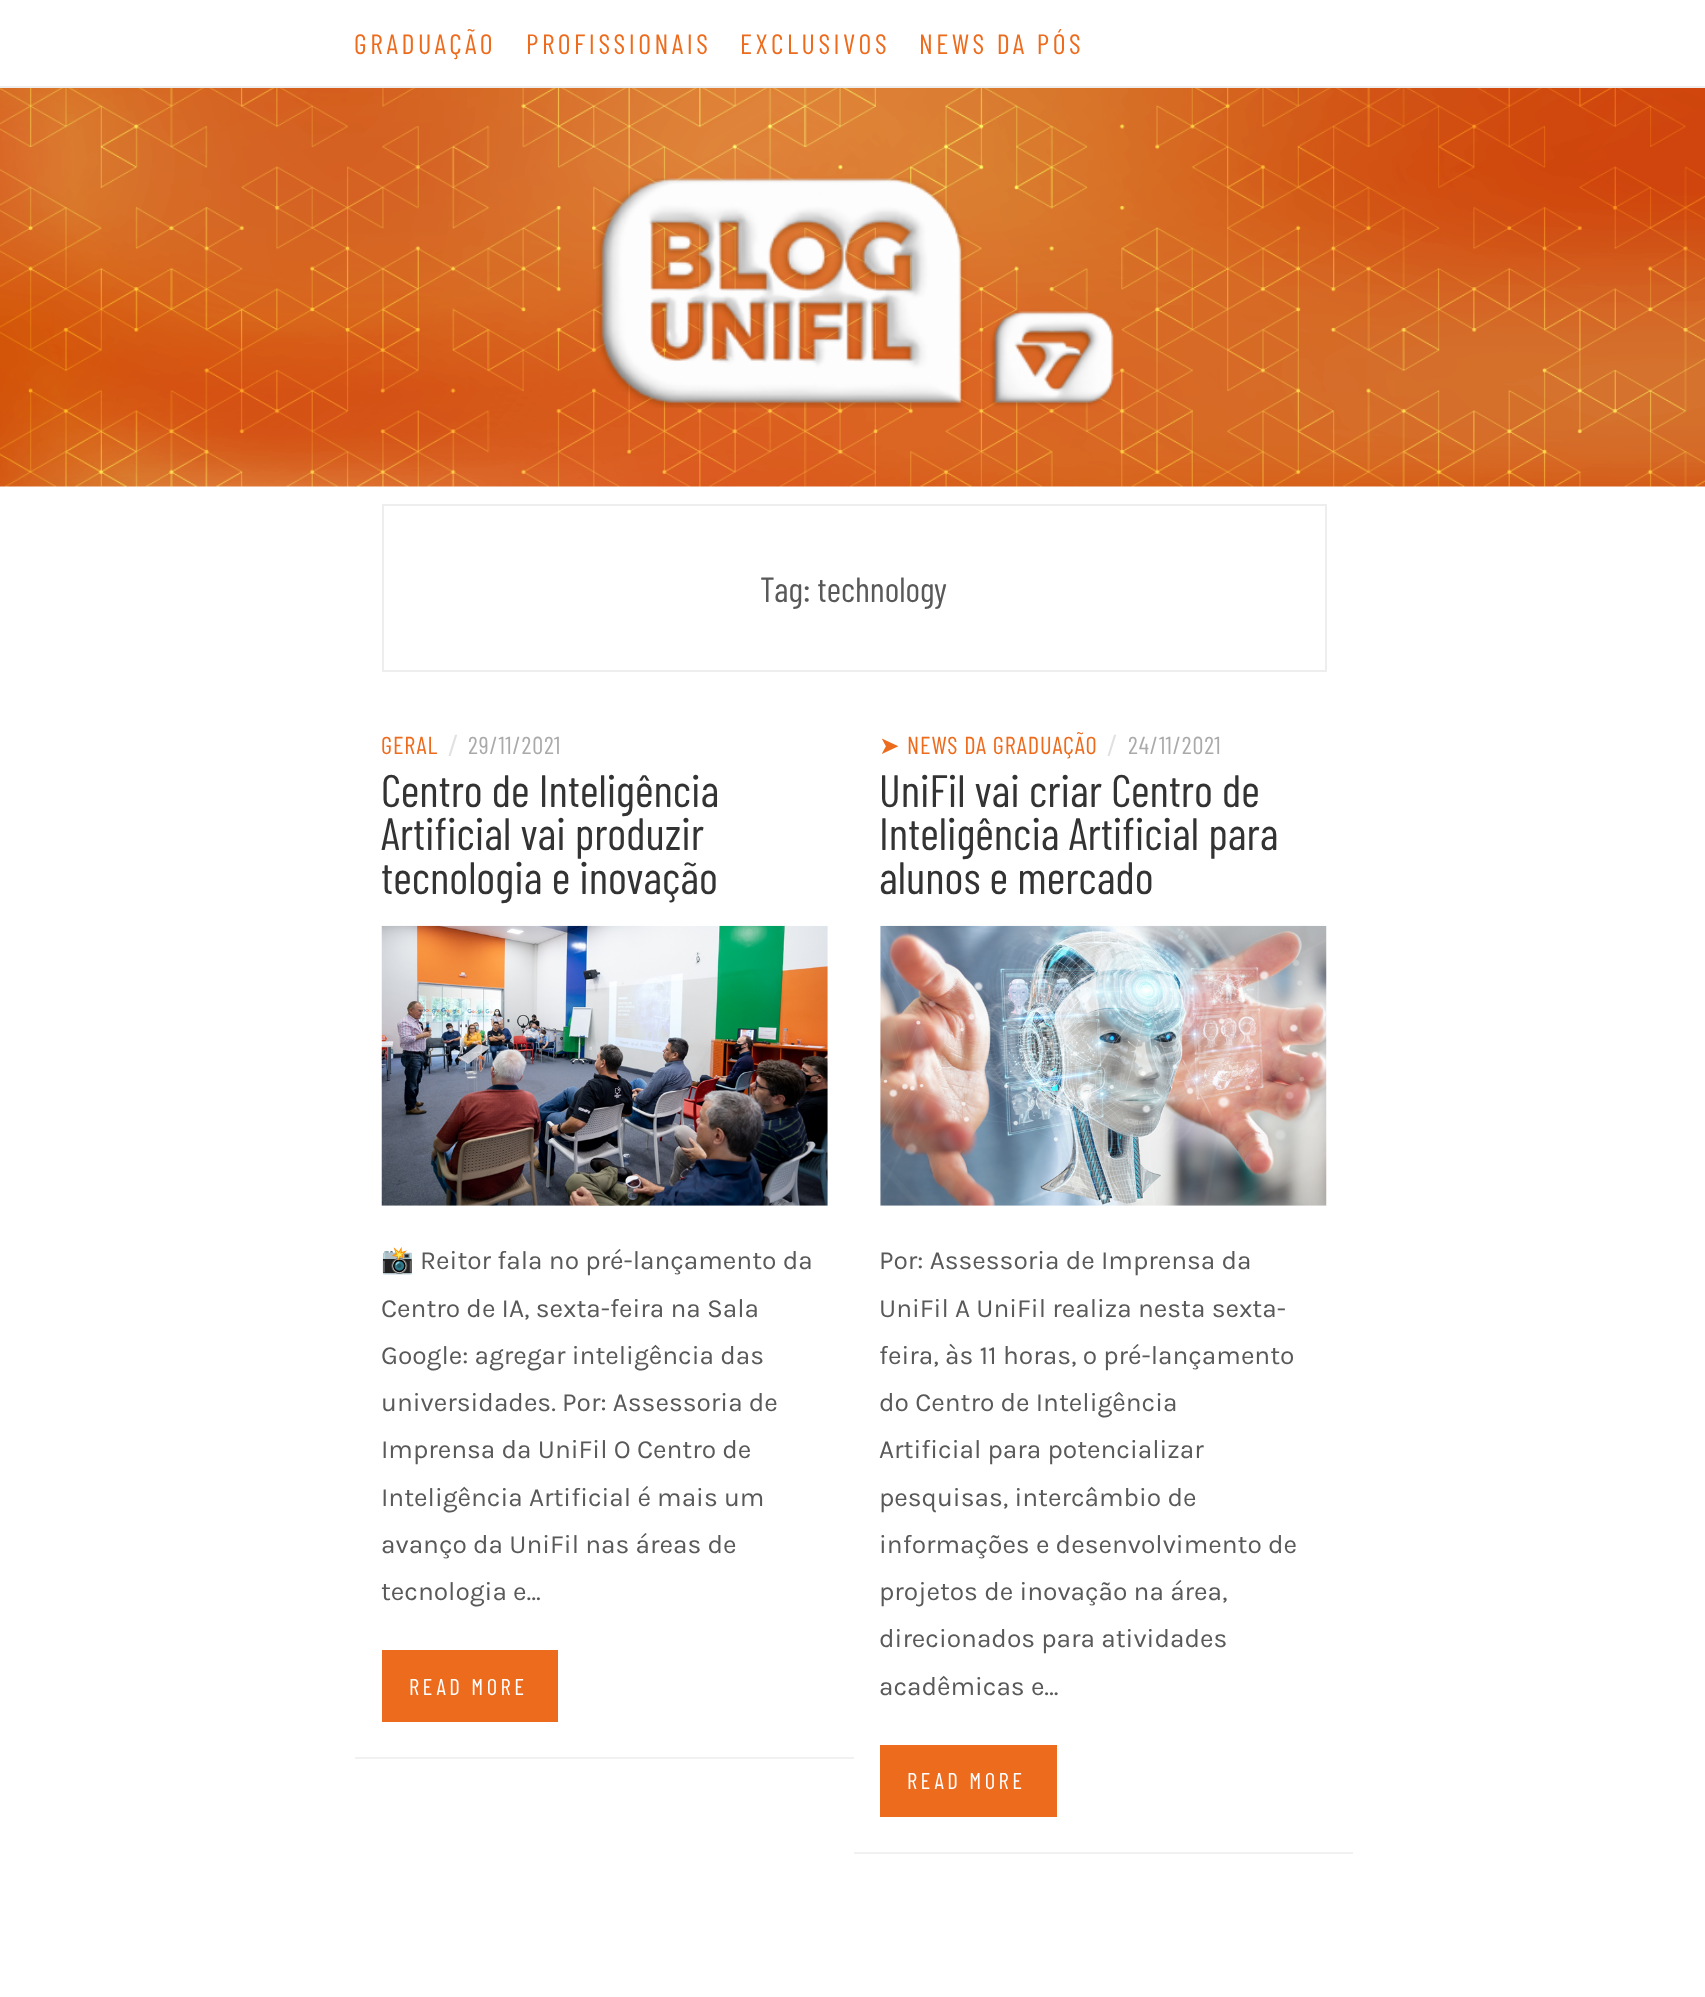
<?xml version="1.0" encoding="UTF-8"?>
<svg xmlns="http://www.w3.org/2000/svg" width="1705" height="1997">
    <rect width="100%" height="100%" fill="#FFFFFF"/>
    <rect x="0" y="86" width="1705" height="2" fill="#EEEEEE"/>
    <text x="354" y="54" font-family="Barlow Condensed" font-size="28" letter-spacing="3.5" fill="#ED6B1D">GRADUAÇÃO</text>
    <text x="526" y="54" font-family="Barlow Condensed" font-size="28" letter-spacing="3.5" fill="#ED6B1D">PROFISSIONAIS</text>
    <text x="740" y="54" font-family="Barlow Condensed" font-size="28" letter-spacing="3.5" fill="#ED6B1D">EXCLUSIVOS</text>
    <text x="919" y="54" font-family="Barlow Condensed" font-size="28" letter-spacing="3.5" fill="#ED6B1D">NEWS DA PÓS</text>
    <image x="0" y="88" width="1705" height="399" href="img_01.png"/>
    <image x="596" y="178" width="518" height="230" href="img_02.png"/>
    <rect x="383" y="505" width="943" height="166" fill="none" stroke="#EEEEEE" stroke-width="2"/>
    <text x="760" y="602" font-family="Barlow Condensed" font-size="35" fill="#595959">Tag: technology</text>
    <rect x="355" y="1757" width="499" height="2" fill="#F2F1F1"/>
    <text x="381" y="754" font-family="Barlow Condensed" font-size="24.5" letter-spacing="0.9" fill="#ED6B1D">GERAL</text>
    <text x="447" y="754" font-family="Karla" font-size="26.25" fill="#E1E1E1">/</text>
    <text x="468" y="754" font-family="Barlow Condensed" font-size="24.5" letter-spacing="0.9" fill="#AAAAAA">29/11/2021</text>
    <text font-family="Barlow Condensed" font-size="45.5" fill="#333333">
        <tspan x="381" y="807">Centro de Inteligência</tspan>
        <tspan x="381" y="850">Artificial vai produzir</tspan>
        <tspan x="381" y="894">tecnologia e inovação</tspan>
    </text>
    <image x="381" y="925" width="447" height="281" href="img_03.png"/>
    <text x="381" y="1269" font-family="Noto Color Emoji" font-size="26.25" fill="#595959">📸</text>
    <text x="420" y="1269" font-family="Karla" font-size="26.25" fill="#595959">Reitor fala no pré-lançamento da</text>
    <text font-family="Karla" font-size="26.25" fill="#595959">
        <tspan x="381" y="1317">Centro de IA, sexta-feira na Sala</tspan>
        <tspan x="381" y="1364">Google: agregar inteligência das</tspan>
        <tspan x="381" y="1411">universidades. Por: Assessoria de</tspan>
        <tspan x="381" y="1458">Imprensa da UniFil O Centro de</tspan>
        <tspan x="381" y="1506">Inteligência Artificial é mais um</tspan>
        <tspan x="381" y="1553">avanço da UniFil nas áreas de</tspan>
        <tspan x="381" y="1600">tecnologia e…</tspan>
    </text>
    <rect x="382" y="1650" width="176" height="72" fill="#ED6B1D"/>
    <text x="409" y="1695" font-family="Barlow Condensed" font-size="22.75" letter-spacing="3.5" fill="#FFFFFF">READ MORE</text>
    <rect x="854" y="1852" width="499" height="2" fill="#F2F1F1"/>
    <text x="879" y="754" font-family="DejaVu Sans" font-size="24.5" letter-spacing="0.9" fill="#ED6B1D">➤</text>
    <text x="907" y="754" font-family="Barlow Condensed" font-size="24.5" letter-spacing="0.9" fill="#ED6B1D">NEWS DA GRADUAÇÃO</text>
    <text x="1106" y="754" font-family="Karla" font-size="26.25" fill="#E1E1E1">/</text>
    <text x="1128" y="754" font-family="Barlow Condensed" font-size="24.5" letter-spacing="0.9" fill="#AAAAAA">24/11/2021</text>
    <text font-family="Barlow Condensed" font-size="45.5" fill="#333333">
        <tspan x="879" y="807">UniFil vai criar Centro de</tspan>
        <tspan x="879" y="850">Inteligência Artificial para</tspan>
        <tspan x="879" y="894">alunos e mercado</tspan>
    </text>
    <image x="880" y="925" width="447" height="281" href="img_04.png"/>
    <text font-family="Karla" font-size="26.25" fill="#595959">
        <tspan x="879" y="1269">Por: Assessoria de Imprensa da</tspan>
        <tspan x="879" y="1317">UniFil A UniFil realiza nesta sexta-</tspan>
        <tspan x="879" y="1364">feira, às 11 horas, o pré-lançamento</tspan>
        <tspan x="879" y="1411">do Centro de Inteligência</tspan>
        <tspan x="879" y="1458">Artificial para potencializar</tspan>
        <tspan x="879" y="1506">pesquisas, intercâmbio de</tspan>
        <tspan x="879" y="1553">informações e desenvolvimento de</tspan>
        <tspan x="879" y="1600">projetos de inovação na área,</tspan>
        <tspan x="879" y="1647">direcionados para atividades</tspan>
        <tspan x="879" y="1695">acadêmicas e…</tspan>
    </text>
    <rect x="880" y="1745" width="177" height="72" fill="#ED6B1D"/>
    <text x="907" y="1789" font-family="Barlow Condensed" font-size="22.75" letter-spacing="3.5" fill="#FFFFFF">READ MORE</text>
</svg>
